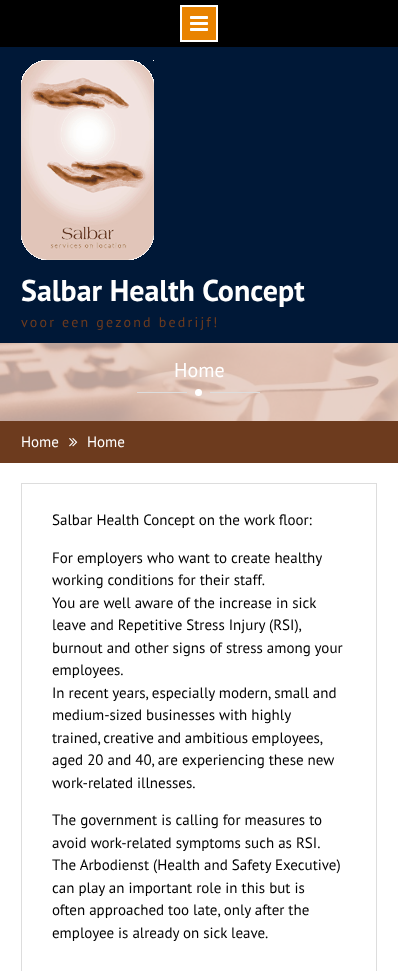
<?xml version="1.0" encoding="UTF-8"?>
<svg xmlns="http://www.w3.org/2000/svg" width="398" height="971">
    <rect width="100%" height="100%" fill="#FFFFFF"/>
    <rect x="0" y="0" width="398" height="47" fill="#000000"/>
    <rect x="181" y="6" width="36" height="35" fill="#E98300" stroke="#FFFFFE" stroke-width="2"/>
    <image x="190" y="16" width="18" height="15" href="img_01.png"/>
    <rect x="0" y="47" width="398" height="296" fill="#001837"/>
    <image x="21" y="60" width="133" height="200" href="img_02.png"/>
    <text x="21" y="301" font-family="PT Sans" font-size="30" font-weight="700" fill="#FFFFFF">Salbar Health Concept</text>
    <text x="21" y="327" font-family="PT Sans" font-size="14" letter-spacing="2.2" fill="#6D3B1E">voor een gezond bedrijf!</text>
    <image x="0" y="343" width="398" height="78" href="img_03.png"/>
    <text x="174" y="377" font-family="PT Sans" font-size="20" fill="#FFFFFF">Home</text>
    <circle cx="198.5" cy="392.5" r="3.5" fill="#FFFFFF"/>
    <rect x="137" y="392" width="50" height="1" fill="#DDDDDD"/>
    <rect x="210" y="392" width="50" height="1" fill="#DDDDDD"/>
    <rect x="0" y="421" width="398" height="42" fill="#6D3B1E"/>
    <text x="21" y="447" font-family="PT Sans" font-size="15" fill="#FFFFFF">Home</text>
    <image x="69" y="438" width="9" height="9" href="img_04.png"/>
    <text x="87" y="447" font-family="PT Sans" font-size="15" fill="#FFFFFF">Home</text>
    <rect x="21.5" y="483.5" width="355" height="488" fill="none" stroke="#DDDDDD"/>
    <text x="52" y="525" font-family="PT Sans" font-size="15" fill="#000000">Salbar Health Concept on the work floor:</text>
    <text font-family="PT Sans" font-size="15" fill="#000000">
        <tspan x="52" y="563">For employers who want to create healthy</tspan>
        <tspan x="52" y="585">working conditions for their staff.</tspan>
        <tspan x="52" y="608">You are well aware of the increase in sick</tspan>
        <tspan x="52" y="630">leave and Repetitive Stress Injury (RSI),</tspan>
        <tspan x="52" y="653">burnout and other signs of stress among your</tspan>
        <tspan x="52" y="675">employees.</tspan>
        <tspan x="52" y="698">In recent years, especially modern, small and</tspan>
        <tspan x="52" y="720">medium-sized businesses with highly</tspan>
        <tspan x="52" y="743" word-spacing="-0.5">trained, creative and ambitious employees,</tspan>
        <tspan x="52" y="765">aged 20 and 40, are experiencing these new</tspan>
        <tspan x="52" y="788">work-related illnesses.</tspan>
    </text>
    <text font-family="PT Sans" font-size="15" fill="#000000">
        <tspan x="52" y="825">The government is calling for measures to</tspan>
        <tspan x="52" y="848">avoid work-related symptoms such as RSI.</tspan>
        <tspan x="52" y="870">The Arbodienst (Health and Safety Executive)</tspan>
        <tspan x="52" y="893">can play an important role in this but is</tspan>
        <tspan x="52" y="915">often approached too late, only after the</tspan>
        <tspan x="52" y="938">employee is already on sick leave.</tspan>
    </text>
</svg>
